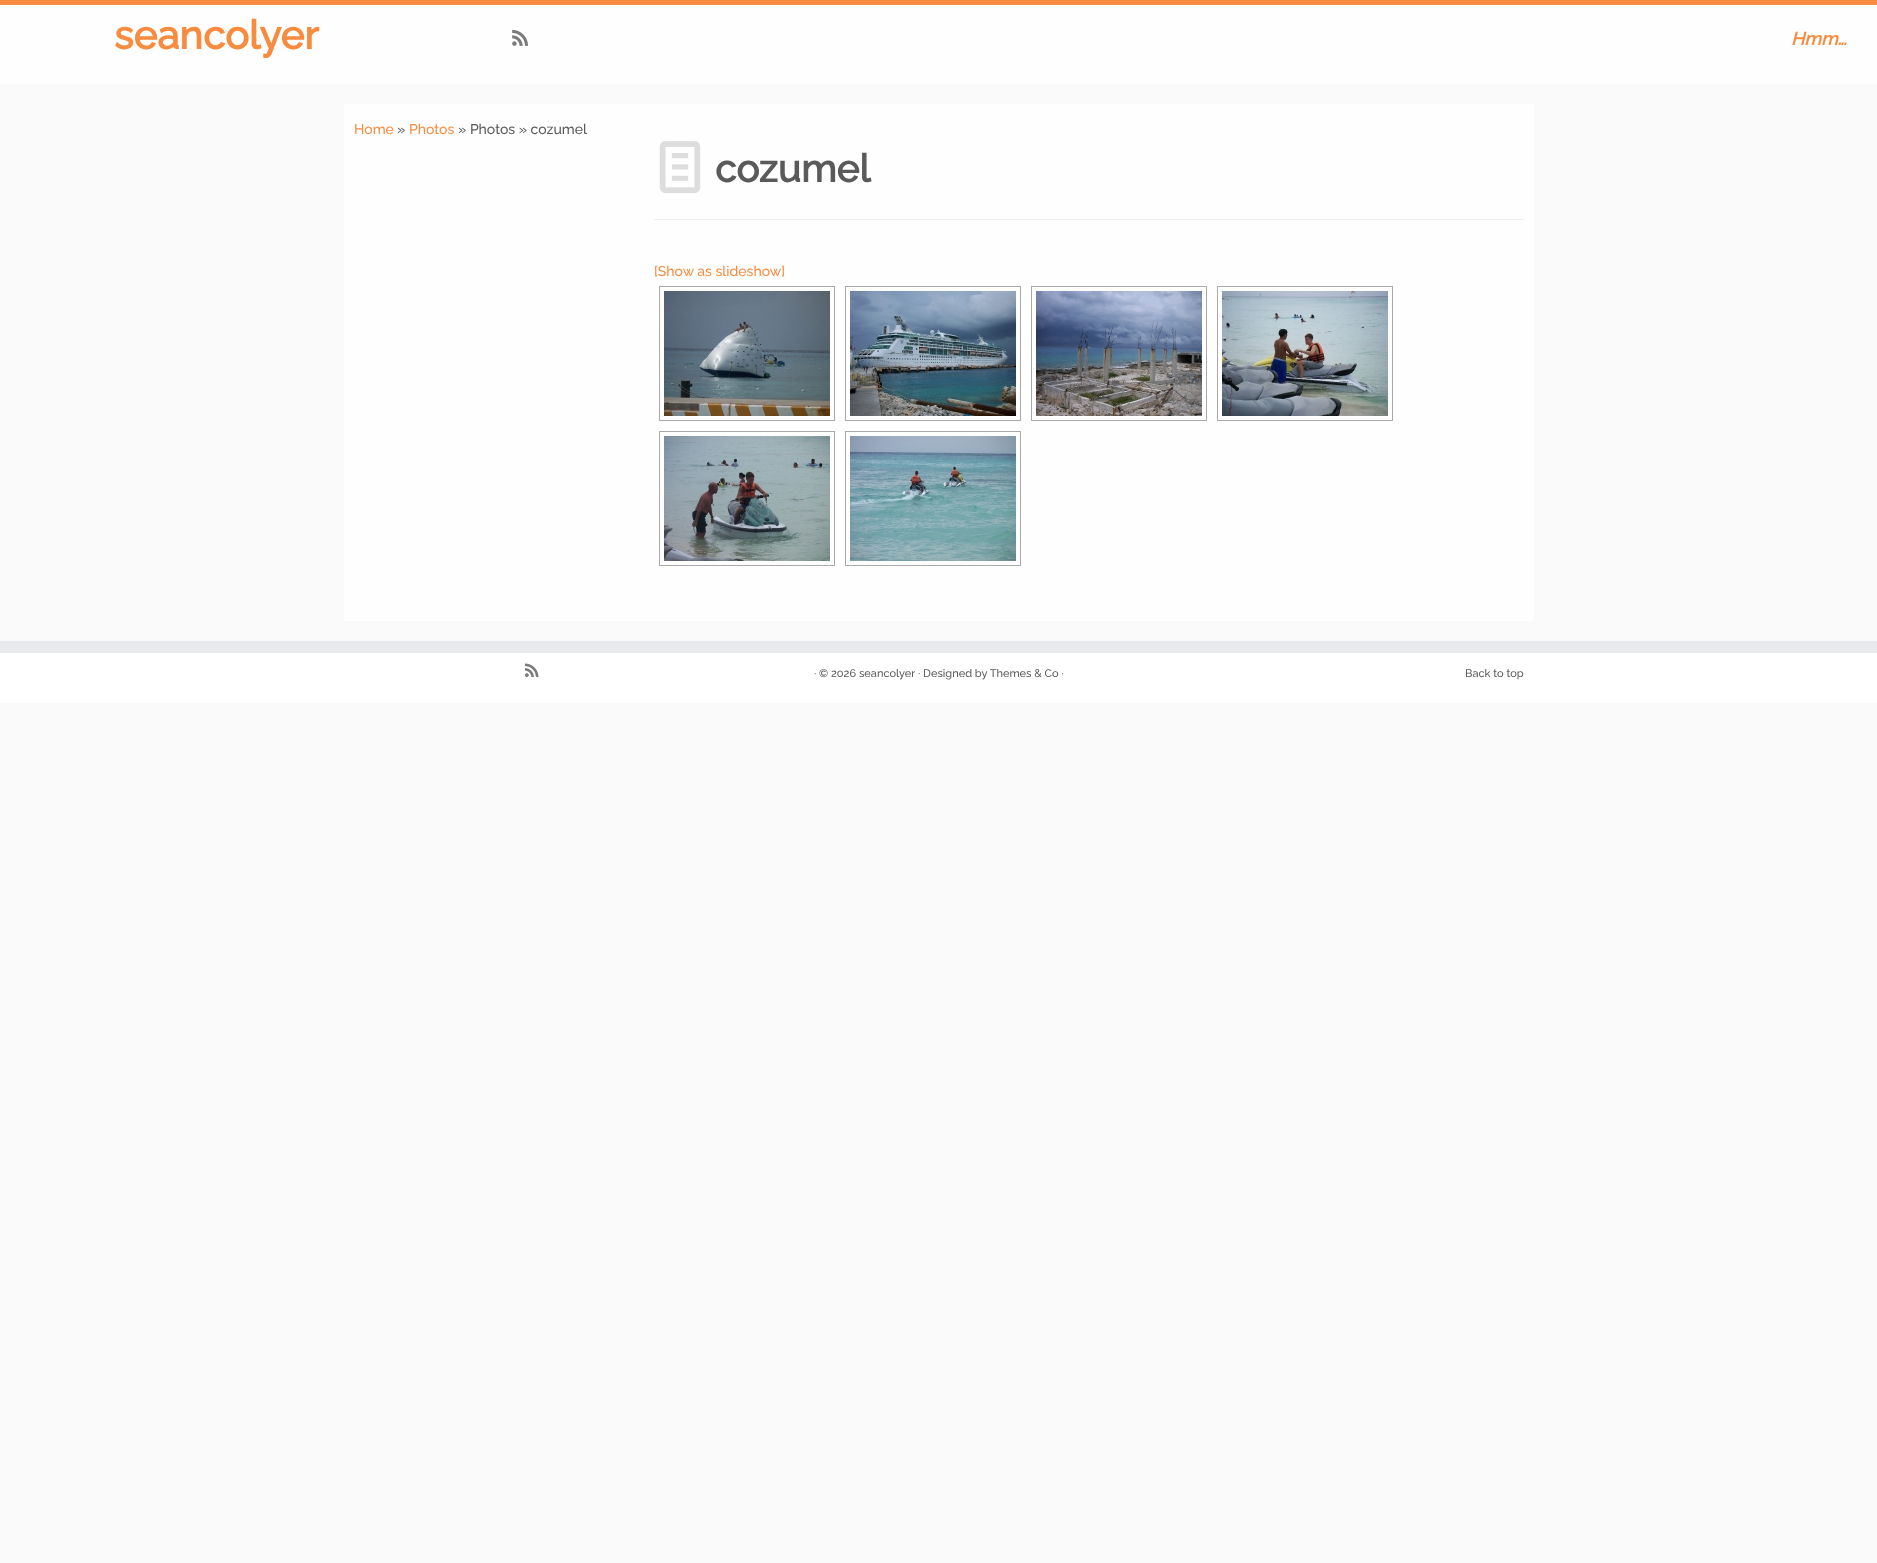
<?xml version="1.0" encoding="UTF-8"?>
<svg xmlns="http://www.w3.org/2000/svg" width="1877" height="1563">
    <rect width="100%" height="100%" fill="#FAFAFA"/>
    <rect x="0" y="5" width="1877" height="79" fill="#FEFEFE"/>
    <rect x="0" y="0" width="1877" height="5" fill="#F78C40"/>
    <text x="114" y="49" font-family="Raleway" font-size="40" font-weight="700" fill="#F78C40">seancolyer</text>
    <image x="512" y="29" width="16" height="17" href="img_01.png"/>
    <text x="1791" y="45" font-family="Raleway" font-size="18" font-weight="700" font-style="italic" fill="#F78C40">Hmm…</text>
    <rect x="344" y="104" width="1190" height="517" fill="#FEFEFE"/>
    <text x="354" y="134" font-family="Raleway" font-size="14" font-weight="500" fill="#F78C40">Home</text>
    <text x="397" y="134" font-family="Raleway" font-size="14" font-weight="500" fill="#5A5A5A">»</text>
    <text x="409" y="134" font-family="Raleway" font-size="14" font-weight="500" fill="#F78C40">Photos</text>
    <text x="458" y="134" font-family="Raleway" font-size="14" font-weight="500" fill="#5A5A5A">» Photos » cozumel</text>
    <image x="659" y="141" width="42" height="53" href="img_02.png"/>
    <text x="715" y="182" font-family="Raleway" font-size="38.5" font-weight="700" fill="#5A5A5A">cozumel</text>
    <rect x="654" y="219" width="870" height="1" fill="#EEEEEE"/>
    <text x="654" y="276" font-family="Raleway" font-size="14" font-weight="500" fill="#F78C40">[Show as slideshow]</text>
    <rect x="659.5" y="286.5" width="175" height="134" fill="none" stroke="#A9A9A9"/>
    <image x="664" y="291" width="166" height="125" href="img_03.png"/>
    <rect x="845.5" y="286.5" width="175" height="134" fill="none" stroke="#A9A9A9"/>
    <image x="850" y="291" width="166" height="125" href="img_04.png"/>
    <rect x="1031.5" y="286.5" width="175" height="134" fill="none" stroke="#A9A9A9"/>
    <image x="1036" y="291" width="166" height="125" href="img_05.png"/>
    <rect x="1217.5" y="286.5" width="175" height="134" fill="none" stroke="#A9A9A9"/>
    <image x="1222" y="291" width="166" height="125" href="img_06.png"/>
    <rect x="659.5" y="431.5" width="175" height="134" fill="none" stroke="#A9A9A9"/>
    <image x="664" y="436" width="166" height="125" href="img_07.png"/>
    <rect x="845.5" y="431.5" width="175" height="134" fill="none" stroke="#A9A9A9"/>
    <image x="850" y="436" width="166" height="125" href="img_08.png"/>
    <rect x="0" y="641" width="1877" height="12" fill="#E9EAEE"/>
    <rect x="0" y="653" width="1877" height="50" fill="#FFFFFF"/>
    <image x="524" y="663" width="15" height="15" href="img_09.png"/>
    <text x="814" y="677" font-family="Raleway" font-size="11" font-weight="500" fill="#5A5A5A">· © 2026 seancolyer</text>
    <text x="918" y="677" font-family="Raleway" font-size="11" font-weight="500" fill="#5A5A5A">· Designed by Themes &amp; Co ·</text>
    <text x="1465" y="677" font-family="Raleway" font-size="11" font-weight="500" fill="#5A5A5A">Back to top</text>
</svg>
